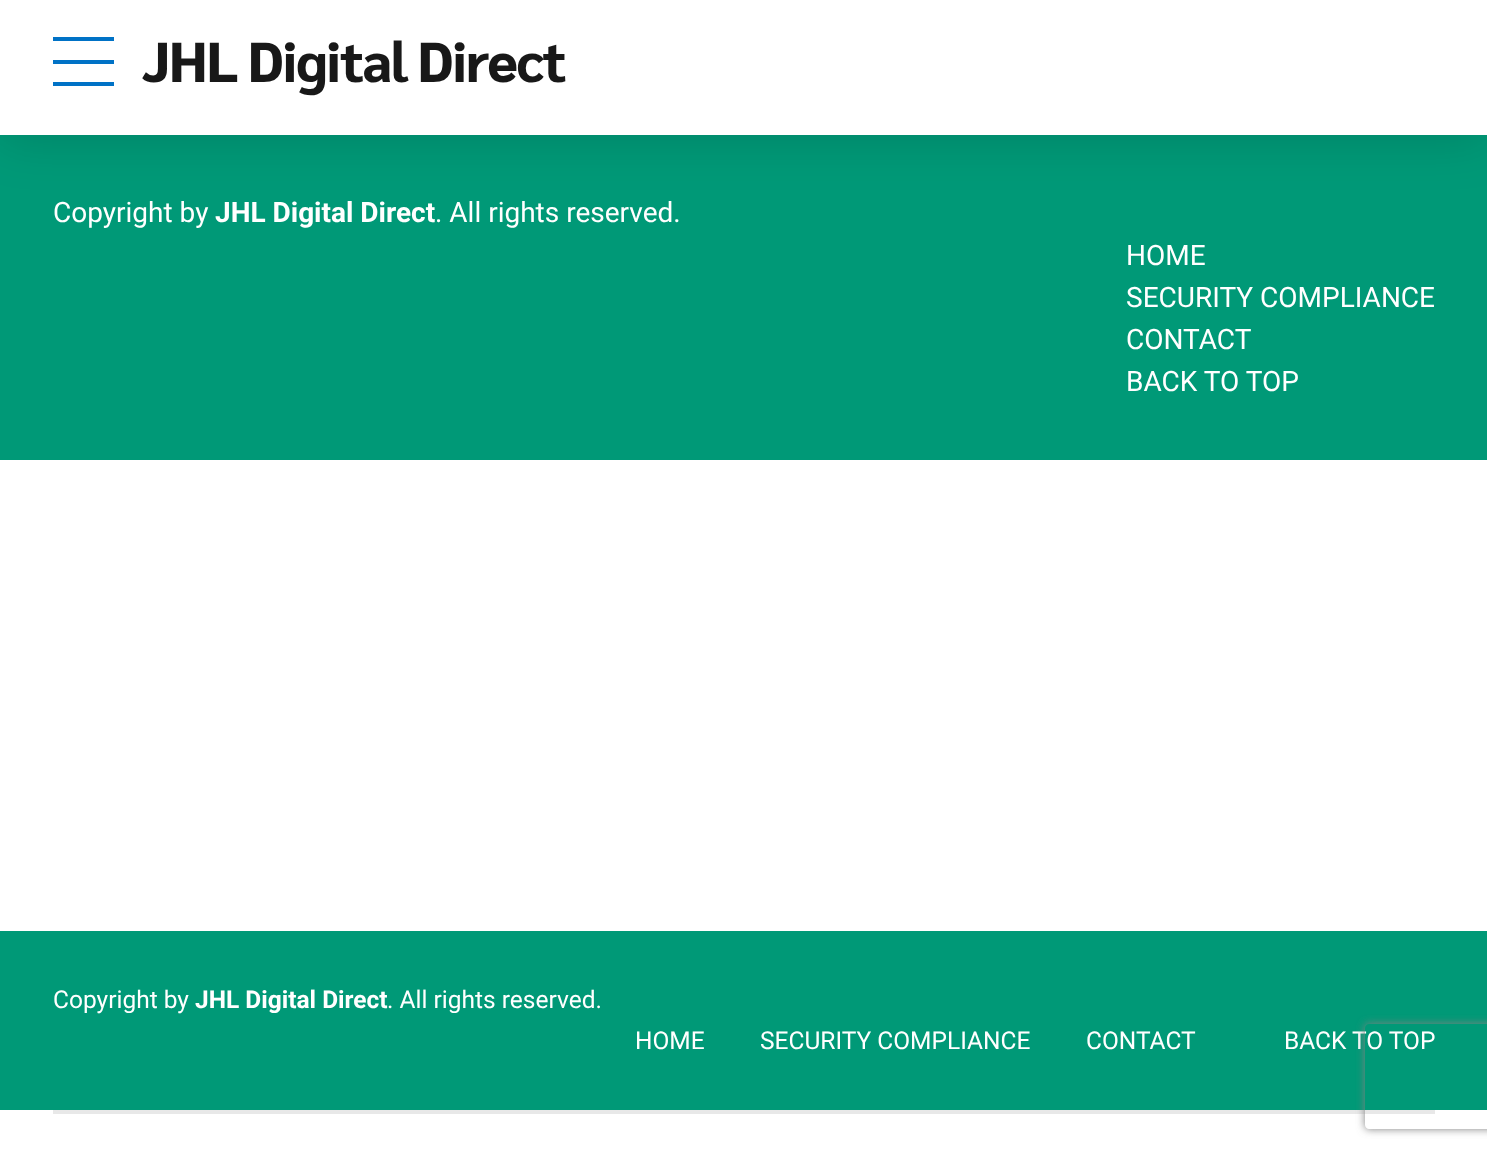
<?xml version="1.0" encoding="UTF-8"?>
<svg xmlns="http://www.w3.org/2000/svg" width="1487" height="1152">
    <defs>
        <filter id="blur1" x="-50%" y="-200%" width="200%" height="500%"><feGaussianBlur stdDeviation="26"/></filter>
        <clipPath id="clip1"><path d="M 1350 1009 H 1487 V 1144 H 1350 Z M 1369 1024 H 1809 C 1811 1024 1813 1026 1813 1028 V 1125 C 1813 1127 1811 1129 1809 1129 H 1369 C 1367 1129 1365 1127 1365 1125 V 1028 C 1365 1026 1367 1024 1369 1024 Z" clip-rule="evenodd"/></clipPath>
        <filter id="blur2" x="-50%" y="-200%" width="200%" height="500%"><feGaussianBlur stdDeviation="4.5"/></filter>
    </defs>
    <rect width="100%" height="100%" fill="#FFFFFF"/>
    <rect x="0" y="135" width="1487" height="325" fill="#009977"/>
    <rect x="0" y="-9" width="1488" height="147" fill="#000000" fill-opacity="0.15" filter="url(#blur1)"/>
    <rect x="0" y="0" width="1487" height="135" fill="#FFFFFF"/>
    <rect x="53" y="37" width="61" height="4" fill="#0072C6"/>
    <rect x="53" y="60" width="61" height="4" fill="#0072C6"/>
    <rect x="53" y="82" width="61" height="4" fill="#0072C6"/>
    <text x="142" y="82" font-family="Sarabun" font-size="56" font-weight="800" letter-spacing="-1.7" fill="#181818">JHL Digital Direct</text>
    <text x="53" y="222" font-family="Roboto" font-size="28" fill="#FFFFFF">Copyright by</text>
    <text x="215" y="222" font-family="Roboto" font-size="28" font-weight="700" fill="#FFFFFF">JHL Digital Direct</text>
    <text x="435" y="222" font-family="Roboto" font-size="28" fill="#FFFFFF">. All rights reserved.</text>
    <text font-family="Roboto" font-size="28" fill="#FFFFFF">
        <tspan x="1126" y="265">HOME</tspan>
        <tspan x="1126" y="307">SECURITY COMPLIANCE</tspan>
        <tspan x="1126" y="349">CONTACT</tspan>
        <tspan x="1126" y="391">BACK TO TOP</tspan>
    </text>
    <rect x="0" y="931" width="1487" height="179" fill="#009977"/>
    <text x="53" y="1008" font-family="Roboto" font-size="24.5" fill="#FFFFFF">Copyright by</text>
    <text x="195" y="1008" font-family="Roboto" font-size="24.5" font-weight="700" fill="#FFFFFF">JHL Digital Direct</text>
    <text x="387" y="1008" font-family="Roboto" font-size="24.5" fill="#FFFFFF">. All rights reserved.</text>
    <text x="635" y="1049" font-family="Roboto" font-size="24.5" fill="#FFFFFF">HOME</text>
    <text x="760" y="1049" font-family="Roboto" font-size="24.5" fill="#FFFFFF">SECURITY COMPLIANCE</text>
    <text x="1086" y="1049" font-family="Roboto" font-size="24.5" fill="#FFFFFF">CONTACT</text>
    <text x="1284" y="1049" font-family="Roboto" font-size="24.5" fill="#FFFFFF">BACK TO TOP</text>
    <rect x="53" y="1110" width="1382" height="4" fill="#E8E8E8"/>
    <g clip-path="url(#clip1)">
        <rect x="1365" y="1024" width="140" height="105" rx="4" fill="#808080" filter="url(#blur2)"/>
    </g>
</svg>
